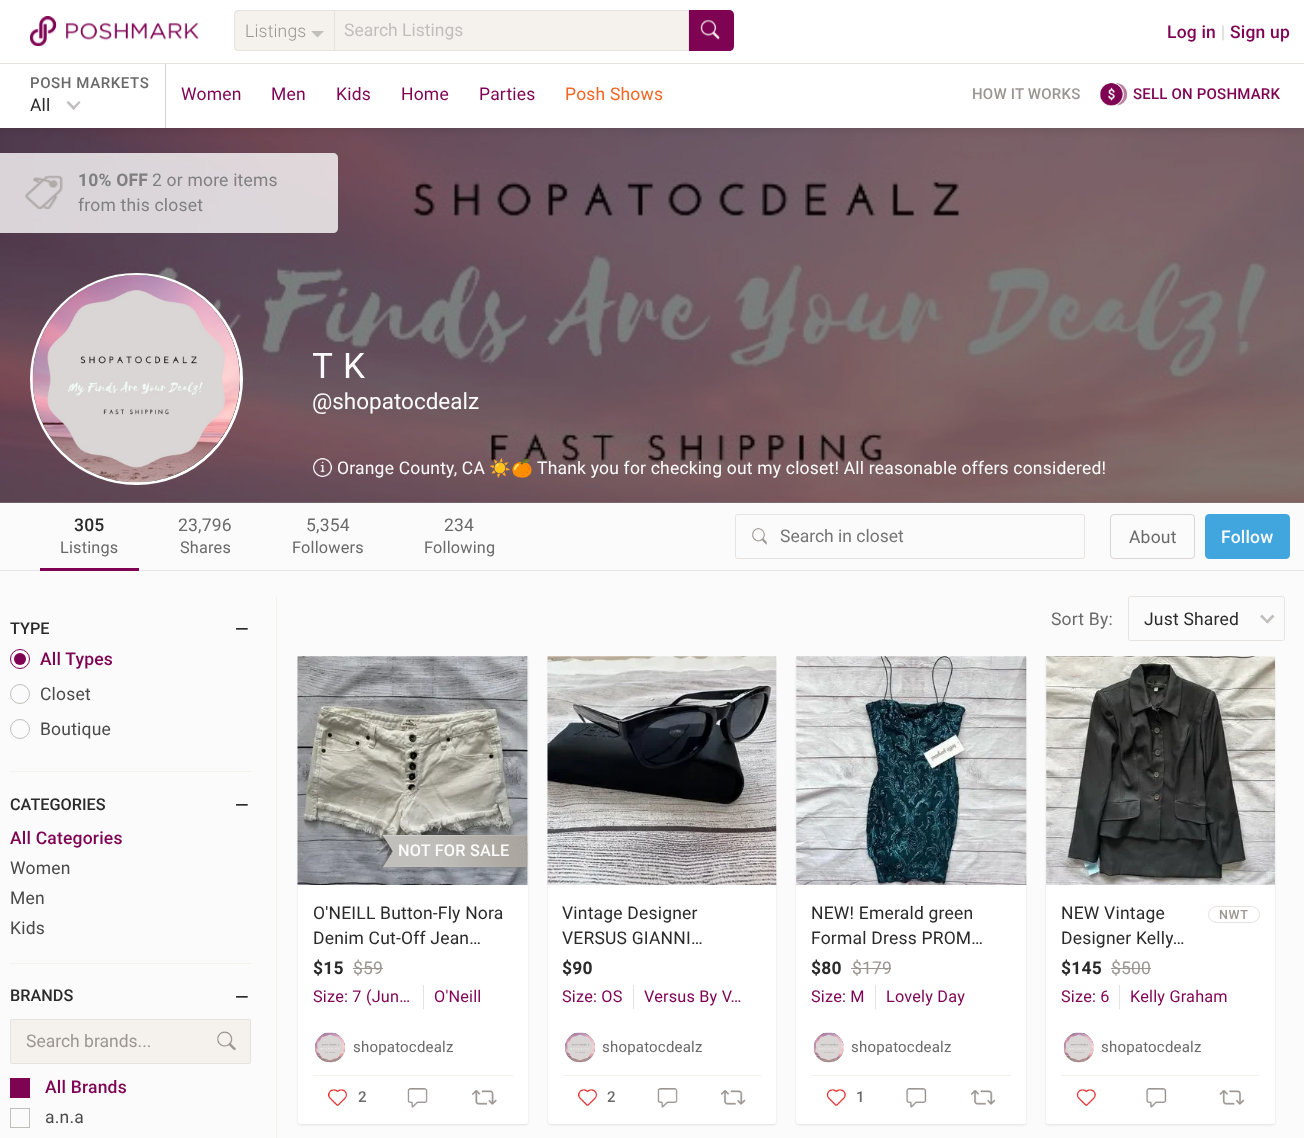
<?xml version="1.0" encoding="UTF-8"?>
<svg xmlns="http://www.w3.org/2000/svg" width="1304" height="1138">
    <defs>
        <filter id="blur1" x="-50%" y="-200%" width="200%" height="500%"><feGaussianBlur stdDeviation="4"/></filter>
        <clipPath id="clip1"><rect x="313" y="345" width="20" height="43"/></clipPath>
        <filter id="blur2" x="-50%" y="-200%" width="200%" height="500%"><feGaussianBlur stdDeviation="1"/></filter>
    </defs>
    <rect width="100%" height="100%" fill="#FCFBFB"/>
    <rect x="0" y="502" width="1304" height="1" fill="#7E7E7E"/>
    <image x="0" y="128" width="1304" height="375" href="img_04.png"/>
    <rect x="-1" y="63" width="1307" height="67" fill="#000000" fill-opacity="0.1" filter="url(#blur1)"/>
    <rect x="0" y="0" width="1304" height="63" fill="#FFFFFF"/>
    <rect x="0" y="64" width="1304" height="64" fill="#FFFFFF"/>
    <rect x="165" y="63" width="1" height="65" fill="#D9D5D2"/>
    <rect x="0" y="63" width="1304" height="1" fill="#E6E2DF"/>
    <image x="30" y="16" width="169" height="30" href="img_01.png"/>
    <path d="M 239 10 H 334 V 51 H 239 C 236 51 234 49 234 46 V 15 C 234 12 236 10 239 10 Z" fill="#F5F2EE"/>
    <path d="M 239 10 H 334 V 51 H 239 C 236 51 234 49 234 46 V 15 C 234 12 236 10 239 10 Z M 239 11 H 334 V 50 H 239 C 237 50 235 48 235 46 V 15 C 235 13 237 11 239 11 Z" fill="#E6E2DF" fill-rule="evenodd"/>
    <text x="245" y="37" font-family="Roboto" font-size="17.5" font-weight="300" letter-spacing="0.2" fill="#9B9691">Listings</text>
    <path d="M 311 31 H 324 L 317.5 37.5 Z" fill="#C1BFBC"/>
    <path d="M 688 10 H 729 C 732 10 734 12 734 15 V 46 C 734 49 732 51 729 51 H 688 Z" fill="#7F0353"/>
    <rect x="334.5" y="10.5" width="354" height="40" fill="#F5F2EE" stroke="#E6E2DF"/>
    <text x="344" y="36" font-family="Roboto" font-size="17.5" fill="#C1BFBC">Search Listings</text>
    <image x="700" y="19" width="20" height="21" href="img_02.png"/>
    <text x="1167" y="38" font-family="Roboto" font-size="17.5" font-weight="500" letter-spacing="0.2" fill="#7F0353">Log in</text>
    <text x="1221" y="38" font-family="Roboto" font-size="17.5" font-weight="300" letter-spacing="0.2" fill="#C1BFBC">|</text>
    <text x="1230" y="38" font-family="Roboto" font-size="17.5" font-weight="500" letter-spacing="0.2" fill="#7F0353">Sign up</text>
    <text x="30" y="88" font-family="Roboto" font-size="15" font-weight="500" letter-spacing="0.6" fill="#6A6A6A">POSH MARKETS</text>
    <text x="30" y="111" font-family="Roboto" font-size="17.5" letter-spacing="0.2" fill="#2A2A2A">All</text>
    <path d="M 79 101 L 80.5 102.5 L 73.5 110 L 72 108 Z" fill="#C1BFBC"/>
    <path d="M 68.5 101 L 75.5 108 L 73.5 110 L 66.5 102.5 Z" fill="#C1BFBC"/>
    <text x="181" y="100" font-family="Roboto" font-size="17.5" letter-spacing="0.2" fill="#7F0353">Women</text>
    <text x="271" y="100" font-family="Roboto" font-size="17.5" letter-spacing="0.2" fill="#7F0353">Men</text>
    <text x="336" y="100" font-family="Roboto" font-size="17.5" letter-spacing="0.2" fill="#7F0353">Kids</text>
    <text x="401" y="100" font-family="Roboto" font-size="17.5" letter-spacing="0.2" fill="#7F0353">Home</text>
    <text x="479" y="100" font-family="Roboto" font-size="17.5" letter-spacing="0.2" fill="#7F0353">Parties</text>
    <text x="565" y="100" font-family="Roboto" font-size="17.5" letter-spacing="0.2" fill="#F36522">Posh Shows</text>
    <text x="972" y="99" font-family="Roboto" font-size="15" font-weight="500" letter-spacing="0.2" fill="#9B9691">HOW IT WORKS</text>
    <image x="1100" y="83" width="28" height="23" href="img_03.png"/>
    <text x="1133" y="99" font-family="Roboto" font-size="15" font-weight="500" letter-spacing="0.2" fill="#7F0353">SELL ON POSHMARK</text>
    <path d="M 0 153 H 333 C 336 153 338 155 338 158 V 228 C 338 231 336 233 333 233 H 0 Z" fill="#FCFBFB" fill-opacity="0.8"/>
    <image x="25" y="175" width="38" height="35" href="img_05.png"/>
    <text x="78" y="186" font-family="Roboto" font-size="17.5" font-weight="700" letter-spacing="0.2" fill="#808080">10% OFF</text>
    <text x="152" y="186" font-family="Roboto" font-size="17.5" letter-spacing="0.2" fill="#808080">2 or more items</text>
    <text x="78" y="211" font-family="Roboto" font-size="17.5" letter-spacing="0.2" fill="#808080">from this closet</text>
    <rect x="31.5" y="274.5" width="210" height="209" rx="104.5" fill="none" stroke="#FFFFFF" stroke-width="3"/>
    <image x="32" y="275" width="208" height="208" href="img_06.png"/>
    <g clip-path="url(#clip1)">
        <text x="312" y="378" font-family="Roboto" font-size="35" fill="#FCFBFB">T</text>
    </g>
    <text x="343" y="378" font-family="Roboto" font-size="35" fill="#FCFBFB">K</text>
    <text x="312" y="409" font-family="Roboto" font-size="22.5" fill="#FCFBFB">@shopatocdealz</text>
    <image x="313" y="458" width="20" height="19" href="img_07.png"/>
    <text x="337" y="474" font-family="Roboto" font-size="17.5" letter-spacing="0.2" fill="#FCFBFB">Orange County, CA</text>
    <text x="489" y="474" font-family="Noto Color Emoji" font-size="17.5" letter-spacing="0.2" fill="#FCFBFB">☀️🍊</text>
    <text x="537" y="474" font-family="Roboto" font-size="17.5" letter-spacing="0.2" fill="#FCFBFB">Thank you for checking out my closet! All reasonable offers considered!</text>
    <rect x="0" y="570" width="1304" height="1" fill="#E6E2DF"/>
    <rect x="40" y="568" width="99" height="3" fill="#7F0353"/>
    <text x="74" y="531" font-family="Roboto" font-size="17.5" font-weight="500" letter-spacing="0.2" fill="#2A2A2A">305</text>
    <text x="60" y="553" font-family="Roboto" font-size="16.25" letter-spacing="0.2" fill="#6A6A6A">Listings</text>
    <text x="178" y="531" font-family="Roboto" font-size="17.5" letter-spacing="0.2" fill="#6A6A6A">23,796</text>
    <text x="180" y="553" font-family="Roboto" font-size="16.25" letter-spacing="0.2" fill="#6A6A6A">Shares</text>
    <text x="306" y="531" font-family="Roboto" font-size="17.5" letter-spacing="0.2" fill="#6A6A6A">5,354</text>
    <text x="292" y="553" font-family="Roboto" font-size="16.25" letter-spacing="0.2" fill="#6A6A6A">Followers</text>
    <text x="444" y="531" font-family="Roboto" font-size="17.5" letter-spacing="0.2" fill="#6A6A6A">234</text>
    <text x="424" y="553" font-family="Roboto" font-size="16.25" letter-spacing="0.2" fill="#6A6A6A">Following</text>
    <rect x="735.5" y="514.5" width="349" height="44" rx="2" fill="none" stroke="#E6E2DF"/>
    <image x="752" y="528" width="15" height="17" href="img_08.png"/>
    <text x="780" y="542" font-family="Roboto" font-size="17.5" fill="#757575">Search in closet</text>
    <rect x="1110.5" y="514.5" width="84" height="44" rx="3.5" fill="none" stroke="#D9D5D2"/>
    <text x="1129" y="543" font-family="Roboto" font-size="17.5" letter-spacing="0.2" fill="#6A6A6A">About</text>
    <rect x="1205.5" y="514.5" width="84" height="44" rx="3.5" fill="#41A6DE" stroke="#41A6DE"/>
    <text x="1221" y="543" font-family="Roboto" font-size="17.5" font-weight="500" letter-spacing="0.2" fill="#FCFBFB">Follow</text>
    <rect x="276" y="596" width="1" height="542" fill="#F5F2EE"/>
    <rect x="10" y="771" width="241" height="1" fill="#F5F2EE"/>
    <text x="10" y="634" font-family="Roboto" font-size="16.25" font-weight="500" fill="#2A2A2A">TYPE</text>
    <text x="235" y="635" font-family="Roboto" font-size="17.5" font-weight="500" letter-spacing="0.2" fill="#2A2A2A">—</text>
    <circle cx="20" cy="659" r="9.5" fill="none" stroke="#7F0353"/>
    <circle cx="20" cy="659" r="6" fill="#7F0353"/>
    <text x="40" y="665" font-family="Roboto" font-size="17.5" font-weight="500" letter-spacing="0.2" fill="#7F0353">All Types</text>
    <circle cx="20" cy="694" r="9.5" fill="none" stroke="#C1BFBC"/>
    <text x="40" y="700" font-family="Roboto" font-size="17.5" letter-spacing="0.2" fill="#4A4A4A">Closet</text>
    <circle cx="20" cy="729" r="9.5" fill="none" stroke="#C1BFBC"/>
    <text x="40" y="735" font-family="Roboto" font-size="17.5" letter-spacing="0.2" fill="#4A4A4A">Boutique</text>
    <rect x="10" y="963" width="241" height="1" fill="#F5F2EE"/>
    <text x="10" y="810" font-family="Roboto" font-size="16.25" font-weight="500" fill="#2A2A2A">CATEGORIES</text>
    <text x="235" y="811" font-family="Roboto" font-size="17.5" font-weight="500" letter-spacing="0.2" fill="#2A2A2A">—</text>
    <text x="10" y="844" font-family="Roboto" font-size="17.5" font-weight="500" letter-spacing="0.2" fill="#7F0353">All Categories</text>
    <text font-family="Roboto" font-size="17.5" letter-spacing="0.2" fill="#4A4A4A">
        <tspan x="10" y="874">Women</tspan>
        <tspan x="10" y="904">Men</tspan>
        <tspan x="10" y="934">Kids</tspan>
    </text>
    <text x="10" y="1001" font-family="Roboto" font-size="16.25" font-weight="500" fill="#2A2A2A">BRANDS</text>
    <text x="235" y="1003" font-family="Roboto" font-size="17.5" font-weight="500" letter-spacing="0.2" fill="#2A2A2A">—</text>
    <rect x="10" y="1019" width="241" height="45" fill="#F5F2EE"/>
    <rect x="10.5" y="1019.5" width="240" height="44" rx="2" fill="none" stroke="#E6E2DF"/>
    <text x="26" y="1047" font-family="Roboto" font-size="17.5" fill="#9B9691">Search brands...</text>
    <image x="217" y="1031" width="19" height="20" href="img_09.png"/>
    <rect x="10" y="1078" width="20" height="20" fill="#7F0353"/>
    <text x="45" y="1093" font-family="Roboto" font-size="17.5" font-weight="500" letter-spacing="0.2" fill="#7F0353">All Brands</text>
    <rect x="10.5" y="1108.5" width="19" height="19" fill="none" stroke="#C1BFBC"/>
    <text x="45" y="1123" font-family="Roboto" font-size="17.5" letter-spacing="0.2" fill="#4A4A4A">a.n.a</text>
    <text x="1051" y="625" font-family="Roboto" font-size="17.5" letter-spacing="0.2" fill="#6A6A6A">Sort By:</text>
    <rect x="1128.5" y="596.5" width="156" height="44" rx="2" fill="none" stroke="#E6E2DF"/>
    <text x="1144" y="625" font-family="Roboto" font-size="17.5" letter-spacing="0.2" fill="#2A2A2A">Just Shared</text>
    <path d="M 1272.5 614.5 L 1274.5 616.5 L 1267.5 623.5 L 1265.5 622 Z" fill="#C1BFBC"/>
    <path d="M 1262 614.5 L 1269 622 L 1267.5 623.5 L 1260 616.5 Z" fill="#C1BFBC"/>
    <rect x="298" y="658" width="230" height="467" rx="2.5" fill="#000000" fill-opacity="0.1" filter="url(#blur2)"/>
    <rect x="298" y="656" width="230" height="468" rx="2.5" fill="#FFFFFF"/>
    <image x="297" y="656" width="231" height="229" href="img_10.png"/>
    <image x="381" y="835" width="147" height="33" href="img_11.png"/>
    <text x="398" y="856" font-family="Roboto" font-size="16.25" font-weight="500" letter-spacing="0.2" fill="#FCFBFB">NOT FOR SALE</text>
    <text font-family="Roboto" font-size="17.5" letter-spacing="0.2" fill="#2A2A2A">
        <tspan x="313" y="919">O'NEILL Button-Fly Nora</tspan>
        <tspan x="313" y="944">Denim Cut-Off Jean…</tspan>
    </text>
    <text x="313" y="974" font-family="Roboto" font-size="17.5" font-weight="700" letter-spacing="0.2" fill="#2A2A2A">$15</text>
    <text x="353" y="974" font-family="Roboto" font-size="17.5" letter-spacing="0.2" fill="#9B9691">$59</text>
    <rect x="353" y="968" width="30" height="1" fill="#9B9691"/>
    <text x="313" y="1002" font-family="Roboto" font-size="16.25" letter-spacing="0.2" fill="#7F0353">Size: 7 (Jun…</text>
    <rect x="423" y="985" width="1" height="24" fill="#E6E2DF"/>
    <text x="434" y="1002" font-family="Roboto" font-size="16.25" letter-spacing="0.2" fill="#7F0353">O'Neill</text>
    <image x="315" y="1032" width="30" height="31" href="img_12.png"/>
    <text x="353" y="1052" font-family="Roboto" font-size="15" letter-spacing="0.2" fill="#6A6A6A">shopatocdealz</text>
    <rect x="313" y="1075" width="200" height="1" fill="#F5F2EE"/>
    <image x="328" y="1089" width="19" height="17" href="img_13.png"/>
    <text x="358" y="1102" font-family="Roboto" font-size="15" font-weight="500" letter-spacing="0.2" fill="#6A6A6A">2</text>
    <image x="407" y="1088" width="21" height="20" href="img_14.png"/>
    <image x="472" y="1090" width="25" height="15" href="img_15.png"/>
    <rect x="548" y="658" width="228" height="467" rx="2.5" fill="#000000" fill-opacity="0.1" filter="url(#blur2)"/>
    <rect x="548" y="656" width="228" height="468" rx="2.5" fill="#FFFFFF"/>
    <image x="547" y="656" width="230" height="229" href="img_16.png"/>
    <text font-family="Roboto" font-size="17.5" letter-spacing="0.2" fill="#2A2A2A">
        <tspan x="562" y="919">Vintage Designer</tspan>
        <tspan x="562" y="944">VERSUS GIANNI…</tspan>
    </text>
    <text x="562" y="974" font-family="Roboto" font-size="17.5" font-weight="700" letter-spacing="0.2" fill="#2A2A2A">$90</text>
    <text x="562" y="1002" font-family="Roboto" font-size="16.25" letter-spacing="0.2" fill="#7F0353">Size: OS</text>
    <rect x="633" y="985" width="1" height="24" fill="#E6E2DF"/>
    <text x="644" y="1002" font-family="Roboto" font-size="16.25" letter-spacing="0.2" fill="#7F0353">Versus By V…</text>
    <image x="565" y="1032" width="30" height="31" href="img_17.png"/>
    <text x="602" y="1052" font-family="Roboto" font-size="15" letter-spacing="0.2" fill="#6A6A6A">shopatocdealz</text>
    <rect x="563" y="1075" width="198" height="1" fill="#F5F2EE"/>
    <image x="578" y="1089" width="19" height="17" href="img_13.png"/>
    <text x="607" y="1102" font-family="Roboto" font-size="15" font-weight="500" letter-spacing="0.2" fill="#6A6A6A">2</text>
    <image x="657" y="1088" width="21" height="20" href="img_14.png"/>
    <image x="721" y="1090" width="25" height="15" href="img_18.png"/>
    <rect x="796" y="658" width="230" height="467" rx="2.5" fill="#000000" fill-opacity="0.1" filter="url(#blur2)"/>
    <rect x="796" y="656" width="230" height="468" rx="2.5" fill="#FFFFFF"/>
    <image x="796" y="656" width="231" height="229" href="img_19.png"/>
    <text font-family="Roboto" font-size="17.5" letter-spacing="0.2" fill="#2A2A2A">
        <tspan x="811" y="919">NEW! Emerald green</tspan>
        <tspan x="811" y="944">Formal Dress PROM…</tspan>
    </text>
    <text x="811" y="974" font-family="Roboto" font-size="17.5" font-weight="700" letter-spacing="0.2" fill="#2A2A2A">$80</text>
    <text x="852" y="974" font-family="Roboto" font-size="17.5" letter-spacing="0.2" fill="#9B9691">$179</text>
    <rect x="851" y="968" width="40" height="1" fill="#9B9691"/>
    <text x="811" y="1002" font-family="Roboto" font-size="16.25" letter-spacing="0.2" fill="#7F0353">Size: M</text>
    <rect x="875" y="985" width="1" height="24" fill="#E6E2DF"/>
    <text x="886" y="1002" font-family="Roboto" font-size="16.25" letter-spacing="0.2" fill="#7F0353">Lovely Day</text>
    <image x="813" y="1032" width="31" height="31" href="img_20.png"/>
    <text x="851" y="1052" font-family="Roboto" font-size="15" letter-spacing="0.2" fill="#6A6A6A">shopatocdealz</text>
    <rect x="811" y="1075" width="200" height="1" fill="#F5F2EE"/>
    <image x="827" y="1089" width="19" height="17" href="img_21.png"/>
    <text x="856" y="1102" font-family="Roboto" font-size="15" font-weight="500" letter-spacing="0.2" fill="#6A6A6A">1</text>
    <image x="906" y="1088" width="21" height="20" href="img_22.png"/>
    <image x="971" y="1090" width="25" height="15" href="img_18.png"/>
    <rect x="1046" y="658" width="229" height="467" rx="2.5" fill="#000000" fill-opacity="0.1" filter="url(#blur2)"/>
    <rect x="1046" y="656" width="229" height="468" rx="2.5" fill="#FFFFFF"/>
    <image x="1046" y="656" width="229" height="229" href="img_23.png"/>
    <text font-family="Roboto" font-size="17.5" letter-spacing="0.2" fill="#2A2A2A">
        <tspan x="1061" y="919">NEW Vintage</tspan>
        <tspan x="1061" y="944">Designer Kelly…</tspan>
    </text>
    <rect x="1208.5" y="906.5" width="51" height="16" rx="8" fill="none" stroke="#E6E2DF"/>
    <text x="1219" y="919" font-family="Roboto" font-size="12.5" font-weight="500" letter-spacing="0.6" fill="#9B9691">NWT</text>
    <text x="1061" y="974" font-family="Roboto" font-size="17.5" font-weight="700" letter-spacing="0.2" fill="#2A2A2A">$145</text>
    <text x="1111" y="974" font-family="Roboto" font-size="17.5" letter-spacing="0.2" fill="#9B9691">$500</text>
    <rect x="1111" y="968" width="40" height="1" fill="#9B9691"/>
    <text x="1061" y="1002" font-family="Roboto" font-size="16.25" letter-spacing="0.2" fill="#7F0353">Size: 6</text>
    <rect x="1119" y="985" width="1" height="24" fill="#E6E2DF"/>
    <text x="1130" y="1002" font-family="Roboto" font-size="16.25" letter-spacing="0.2" fill="#7F0353">Kelly Graham</text>
    <image x="1063" y="1032" width="31" height="31" href="img_24.png"/>
    <text x="1101" y="1052" font-family="Roboto" font-size="15" letter-spacing="0.2" fill="#6A6A6A">shopatocdealz</text>
    <rect x="1061" y="1075" width="199" height="1" fill="#F5F2EE"/>
    <image x="1077" y="1089" width="19" height="17" href="img_21.png"/>
    <image x="1146" y="1088" width="21" height="20" href="img_22.png"/>
    <image x="1219" y="1090" width="26" height="15" href="img_25.png"/>
</svg>
